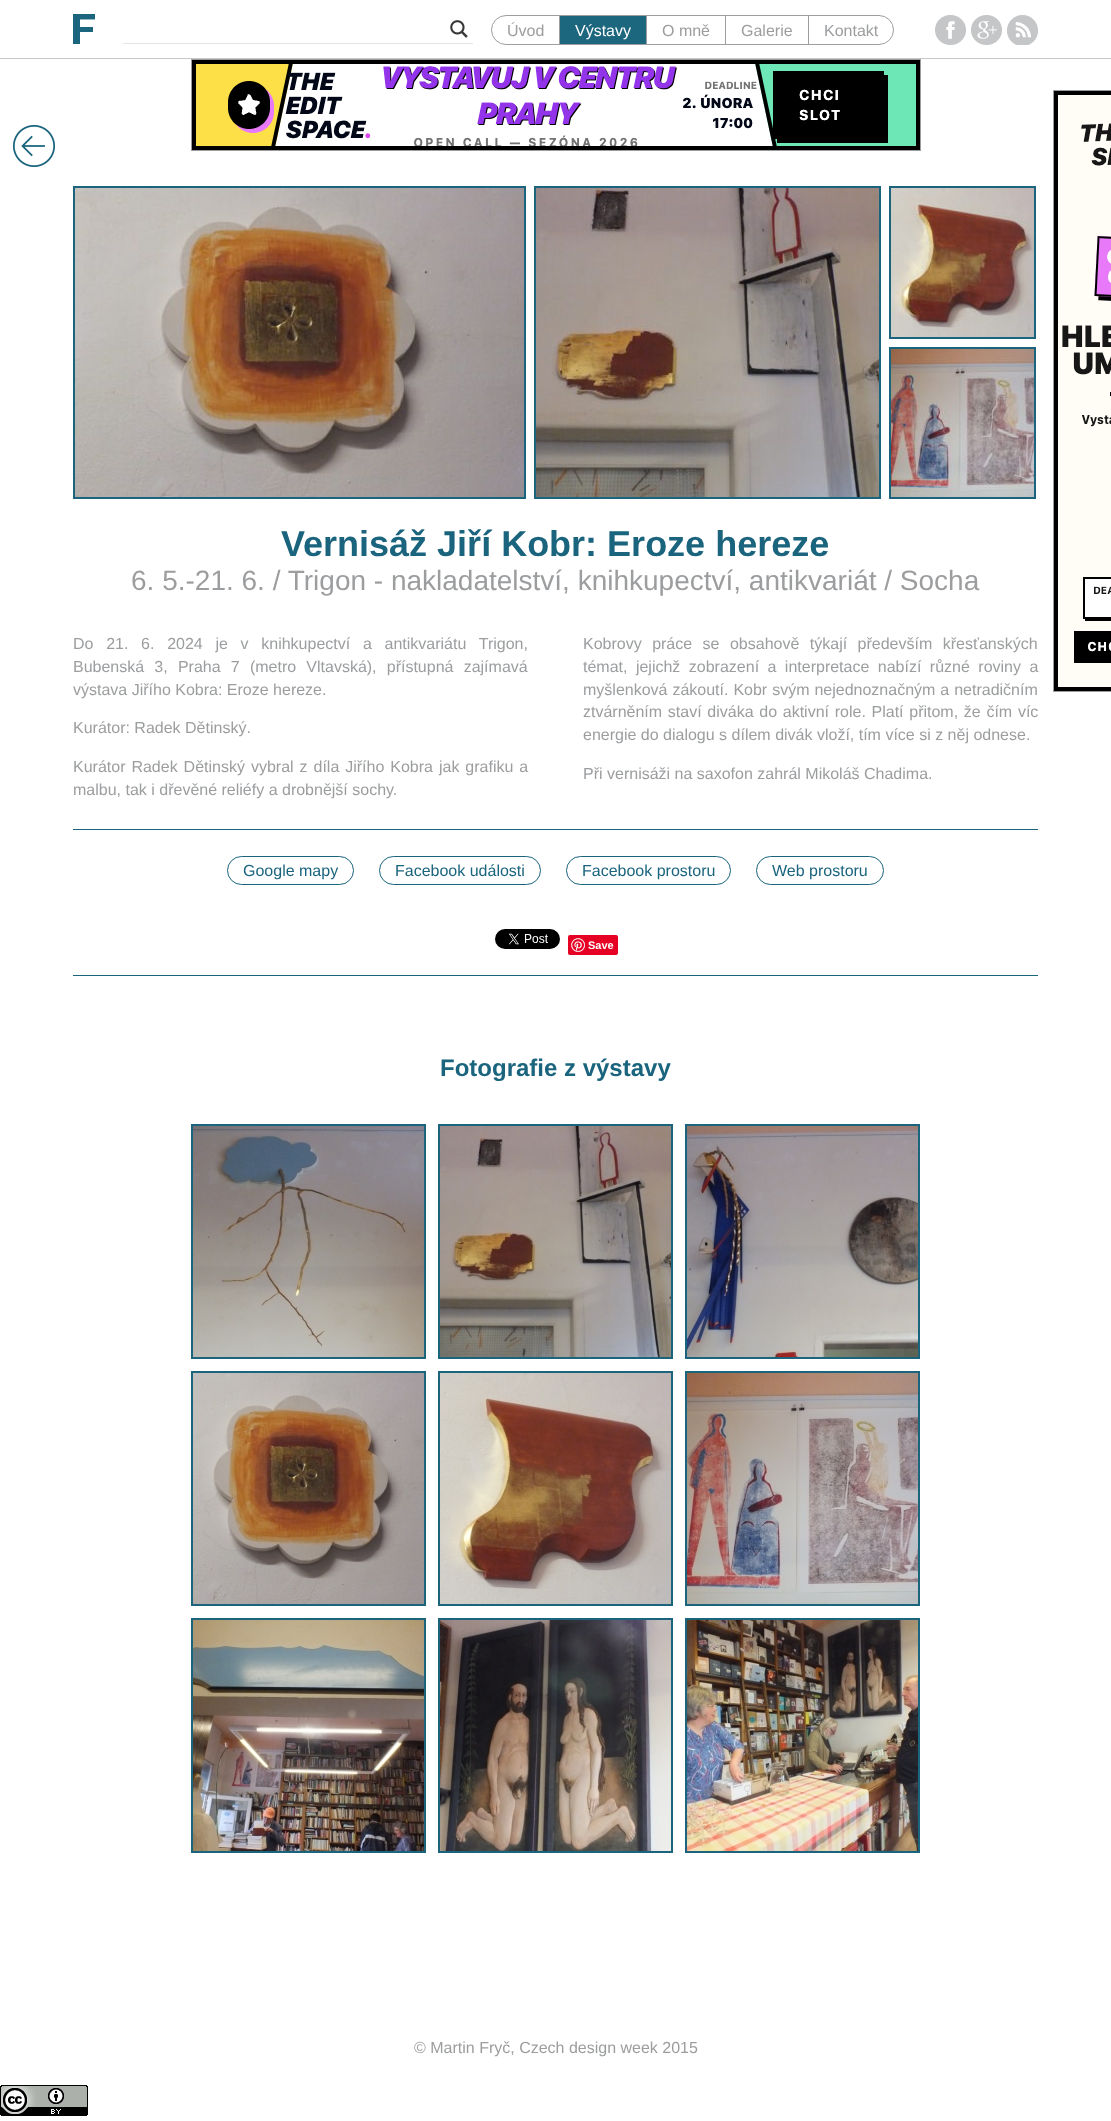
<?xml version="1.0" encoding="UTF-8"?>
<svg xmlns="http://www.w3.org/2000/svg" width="1111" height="2121">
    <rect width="100%" height="100%" fill="#FFFFFF"/>
    <rect x="0" y="58" width="1111" height="1" fill="#C6C7C8"/>
    <image x="73" y="14" width="22" height="30" href="img_01.png"/>
    <rect x="123" y="43" width="350" height="1" fill="#E4E4E4"/>
    <image x="450" y="20" width="18" height="18" href="img_02.png"/>
    <rect x="491.5" y="15.5" width="402" height="29" rx="14.5" fill="none" stroke="#9C9EA0"/>
    <text x="507" y="36" font-family="Liberation Sans" font-size="16" fill="#9B9D9F">Úvod</text>
    <rect x="559" y="16" width="1" height="28" fill="#9C9EA0"/>
    <rect x="560" y="16" width="86" height="28" fill="#1C667E"/>
    <text x="575" y="36" font-family="Liberation Sans" font-size="16" fill="#FFFFFF">Výstavy</text>
    <rect x="646" y="16" width="1" height="28" fill="#9C9EA0"/>
    <text x="662" y="36" font-family="Liberation Sans" font-size="16" fill="#9B9D9F">O mně</text>
    <rect x="725" y="16" width="1" height="28" fill="#9C9EA0"/>
    <text x="741" y="36" font-family="Liberation Sans" font-size="16" fill="#9B9D9F">Galerie</text>
    <rect x="808" y="16" width="1" height="28" fill="#9C9EA0"/>
    <text x="824" y="36" font-family="Liberation Sans" font-size="16" fill="#9B9D9F">Kontakt</text>
    <image x="935" y="15" width="31" height="30" href="img_03.png"/>
    <image x="971" y="15" width="31" height="30" href="img_04.png"/>
    <image x="1007" y="15" width="31" height="30" href="img_05.png"/>
    <image x="13" y="125" width="42" height="42" href="img_06.png"/>
    <rect x="191.5" y="59.5" width="729" height="91" fill="none" stroke="#9B9D9F"/>
    <image x="192" y="60" width="728" height="90" href="img_07.png"/>
    <rect x="1053.5" y="90.5" width="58" height="601" fill="none" stroke="#9B9D9F"/>
    <image x="1054" y="91" width="57" height="600" href="img_08.png"/>
    <rect x="74" y="187" width="451" height="311" fill="none" stroke="#1A647D" stroke-width="2"/>
    <image x="75" y="188" width="449" height="309" href="img_09.png"/>
    <rect x="535" y="187" width="345" height="311" fill="none" stroke="#1A647D" stroke-width="2"/>
    <image x="536" y="188" width="343" height="309" href="img_10.png"/>
    <rect x="890" y="187" width="145" height="151" fill="none" stroke="#1A647D" stroke-width="2"/>
    <image x="891" y="188" width="143" height="149" href="img_11.png"/>
    <rect x="890" y="348" width="145" height="150" fill="none" stroke="#1A647D" stroke-width="2"/>
    <image x="891" y="349" width="143" height="148" href="img_12.png"/>
    <text x="281" y="556" font-family="Liberation Sans" font-size="36" font-weight="700" fill="#1A647D">Vernisáž Jiří Kobr: Eroze hereze</text>
    <text x="131" y="590" font-family="Liberation Sans" font-size="28" fill="#9B9D9F">6. 5.-21. 6. / Trigon - nakladatelství, knihkupectví, antikvariát / Socha</text>
    <text font-family="Liberation Sans" font-size="16" fill="#9B9D9F">
        <tspan x="73" y="649" word-spacing="8.25">Do 21. 6. 2024 je v knihkupectví a antikvariátu Trigon,</tspan>
        <tspan x="73" y="672" word-spacing="5.75">Bubenská 3, Praha 7 (metro Vltavská), přístupná zajímavá</tspan>
        <tspan x="73" y="695">výstava Jiřího Kobra: Eroze hereze.</tspan>
    </text>
    <text font-family="Liberation Sans" font-size="16" fill="#9B9D9F">
        <tspan x="583" y="649" word-spacing="6">Kobrovy práce se obsahově týkají především křesťanských</tspan>
        <tspan x="583" y="672" word-spacing="4">témat, jejichž zobrazení a interpretace nabízí různé roviny a</tspan>
        <tspan x="583" y="695" word-spacing="0.5">myšlenková zákoutí. Kobr svým nejednoznačným a netradičním</tspan>
        <tspan x="583" y="717" word-spacing="1.25">ztvárněním staví diváka do aktivní role. Platí přitom, že čím víc</tspan>
        <tspan x="583" y="740">energie do dialogu s dílem divák vloží, tím více si z něj odnese.</tspan>
    </text>
    <text x="73" y="733" font-family="Liberation Sans" font-size="16" fill="#9B9D9F">Kurátor: Radek Dětinský.</text>
    <text font-family="Liberation Sans" font-size="16" fill="#9B9D9F">
        <tspan x="73" y="772" word-spacing="1.5">Kurátor Radek Dětinský vybral z díla Jiřího Kobra jak grafiku a</tspan>
        <tspan x="73" y="795">malbu, tak i dřevěné reliéfy a drobnější sochy.</tspan>
    </text>
    <text x="583" y="779" font-family="Liberation Sans" font-size="16" fill="#9B9D9F">Při vernisáži na saxofon zahrál Mikoláš Chadima.</text>
    <rect x="73" y="829" width="965" height="1" fill="#1A647D"/>
    <rect x="227.5" y="856.5" width="126" height="28" rx="14" fill="none" stroke="#1A647D"/>
    <text x="243" y="876" font-family="Liberation Sans" font-size="16" fill="#1A647D">Google mapy</text>
    <rect x="379.5" y="856.5" width="161" height="28" rx="14" fill="none" stroke="#1A647D"/>
    <text x="395" y="876" font-family="Liberation Sans" font-size="16" fill="#1A647D">Facebook události</text>
    <rect x="566.5" y="856.5" width="164" height="28" rx="14" fill="none" stroke="#1A647D"/>
    <text x="582" y="876" font-family="Liberation Sans" font-size="16" fill="#1A647D">Facebook prostoru</text>
    <rect x="756.5" y="856.5" width="127" height="28" rx="14" fill="none" stroke="#1A647D"/>
    <text x="772" y="876" font-family="Liberation Sans" font-size="16" fill="#1A647D">Web prostoru</text>
    <image x="495" y="929" width="65" height="20" href="img_13.png"/>
    <rect x="568" y="935" width="50" height="20" rx="2" fill="#E60023"/>
    <image x="571" y="938" width="14" height="14" href="img_14.png"/>
    <text x="588" y="949" font-family="Liberation Sans" font-size="11" font-weight="700" fill="#FFFFFF">Save</text>
    <rect x="73" y="975" width="965" height="1" fill="#1A647D"/>
    <text x="440" y="1076" font-family="Liberation Sans" font-size="24" font-weight="700" fill="#1A647D">Fotografie z výstavy</text>
    <rect x="192" y="1125" width="233" height="233" fill="none" stroke="#1A647D" stroke-width="2"/>
    <image x="193" y="1126" width="231" height="231" href="img_15.png"/>
    <rect x="439" y="1125" width="233" height="233" fill="none" stroke="#1A647D" stroke-width="2"/>
    <image x="440" y="1126" width="231" height="231" href="img_16.png"/>
    <rect x="686" y="1125" width="233" height="233" fill="none" stroke="#1A647D" stroke-width="2"/>
    <image x="687" y="1126" width="231" height="231" href="img_17.png"/>
    <rect x="192" y="1372" width="233" height="233" fill="none" stroke="#1A647D" stroke-width="2"/>
    <image x="193" y="1373" width="231" height="231" href="img_18.png"/>
    <rect x="439" y="1372" width="233" height="233" fill="none" stroke="#1A647D" stroke-width="2"/>
    <image x="440" y="1373" width="231" height="231" href="img_19.png"/>
    <rect x="686" y="1372" width="233" height="233" fill="none" stroke="#1A647D" stroke-width="2"/>
    <image x="687" y="1373" width="231" height="231" href="img_20.png"/>
    <rect x="192" y="1619" width="233" height="233" fill="none" stroke="#1A647D" stroke-width="2"/>
    <image x="193" y="1620" width="231" height="231" href="img_21.png"/>
    <rect x="439" y="1619" width="233" height="233" fill="none" stroke="#1A647D" stroke-width="2"/>
    <image x="440" y="1620" width="231" height="231" href="img_22.png"/>
    <rect x="686" y="1619" width="233" height="233" fill="none" stroke="#1A647D" stroke-width="2"/>
    <image x="687" y="1620" width="231" height="231" href="img_23.png"/>
    <text x="414" y="2053" font-family="Liberation Sans" font-size="16" fill="#9B9D9F">© Martin Fryč, Czech design week 2015</text>
    <image x="0" y="2085" width="88" height="31" href="img_24.png"/>
</svg>
